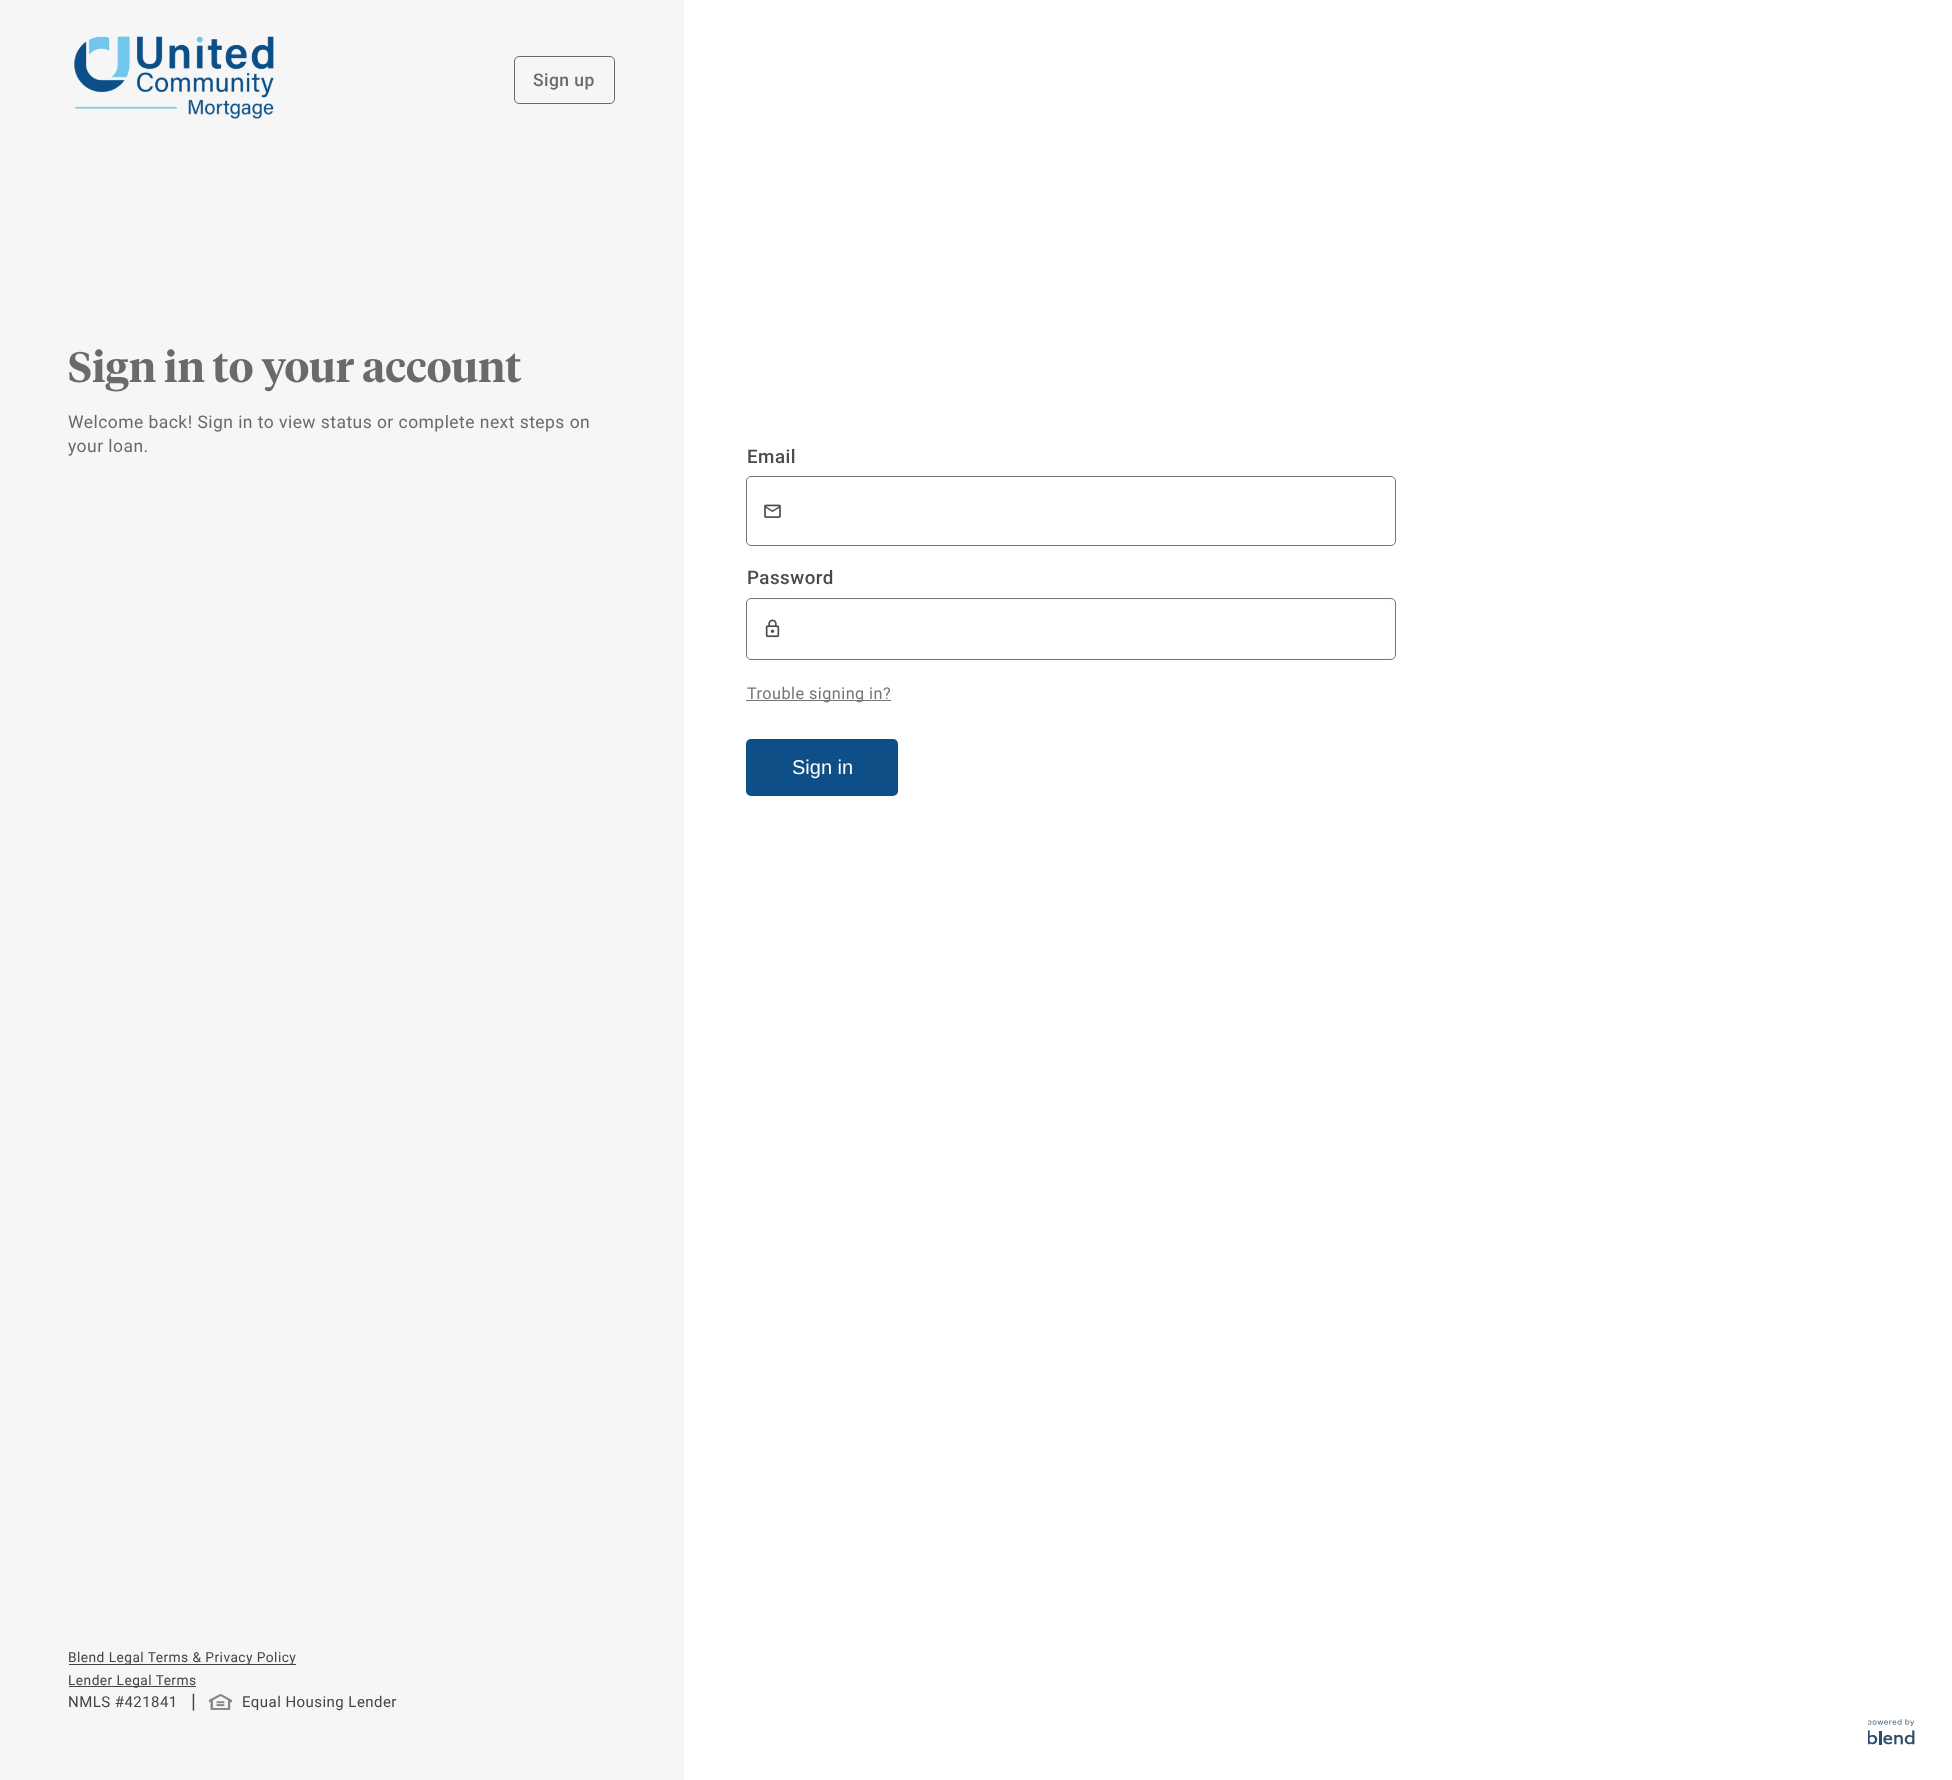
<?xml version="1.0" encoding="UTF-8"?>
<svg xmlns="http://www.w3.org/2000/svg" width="1952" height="1780">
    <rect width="100%" height="100%" fill="#F6F6F6"/>
    <image x="74" y="36" width="200" height="83" href="img_01.png"/>
    <rect x="514.5" y="56.5" width="100" height="47" rx="4.5" fill="none" stroke="#6A6A6A"/>
    <text x="533" y="86" font-family="Roboto" font-size="17.5" font-weight="500" letter-spacing="0.45" fill="#6A6A6A">Sign up</text>
    <text x="68" y="382" font-family="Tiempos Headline" font-size="42.5" font-weight="600" letter-spacing="0.1" fill="#6A6A6A">Sign in to your account</text>
    <text font-family="Roboto" font-size="17.5" letter-spacing="0.45" fill="#6A6A6A">
        <tspan x="68" y="428">Welcome back! Sign in to view status or complete next steps on</tspan>
        <tspan x="68" y="452">your loan.</tspan>
    </text>
    <rect x="69" y="1664" width="227" height="1" fill="#444444"/>
    <text x="68" y="1662" font-family="Roboto" font-size="13.75" letter-spacing="0.45" fill="#444444">Blend Legal Terms &amp; Privacy Policy</text>
    <rect x="69" y="1686" width="127" height="1" fill="#444444"/>
    <text x="68" y="1685" font-family="Roboto" font-size="13.75" letter-spacing="0.45" fill="#444444">Lender Legal Terms</text>
    <text x="68" y="1707" font-family="Roboto" font-size="15" letter-spacing="0.45" fill="#444444">NMLS #421841</text>
    <text x="191" y="1708" font-family="Roboto" font-size="20" letter-spacing="0.45" fill="#444444">|</text>
    <image x="209" y="1694" width="24" height="16" href="img_02.png"/>
    <text x="242" y="1707" font-family="Roboto" font-size="15" letter-spacing="0.45" fill="#444444">Equal Housing Lender</text>
    <rect x="684" y="0" width="1268" height="1780" fill="#FFFFFF"/>
    <text x="747" y="463" font-family="Roboto" font-size="18.75" font-weight="500" letter-spacing="0.5" fill="#4A4A4A">Email</text>
    <rect x="746.5" y="476.5" width="649" height="69" rx="4.5" fill="none" stroke="#757575"/>
    <image x="764" y="504" width="17" height="14" href="img_03.png"/>
    <text x="747" y="584" font-family="Roboto" font-size="18.75" font-weight="500" letter-spacing="0.5" fill="#4A4A4A">Password</text>
    <rect x="748.5" y="599.5" width="646" height="59" rx="3.5" fill="none" stroke="#FAFAFA"/>
    <rect x="746.5" y="598.5" width="649" height="61" rx="4.5" fill="none" stroke="#757575"/>
    <image x="765" y="619" width="15" height="19" href="img_04.png"/>
    <rect x="746" y="700" width="145" height="1" fill="#757575"/>
    <text x="747" y="699" font-family="Roboto" font-size="16.25" letter-spacing="0.45" fill="#757575">Trouble signing in?</text>
    <rect x="746" y="739" width="152" height="57" rx="5" fill="#0E4F87"/>
    <text x="792" y="774" font-family="Liberation Sans" font-size="20" fill="#FFFFFF">Sign in</text>
    <image x="1868" y="1719" width="47" height="26" href="img_05.png"/>
</svg>
